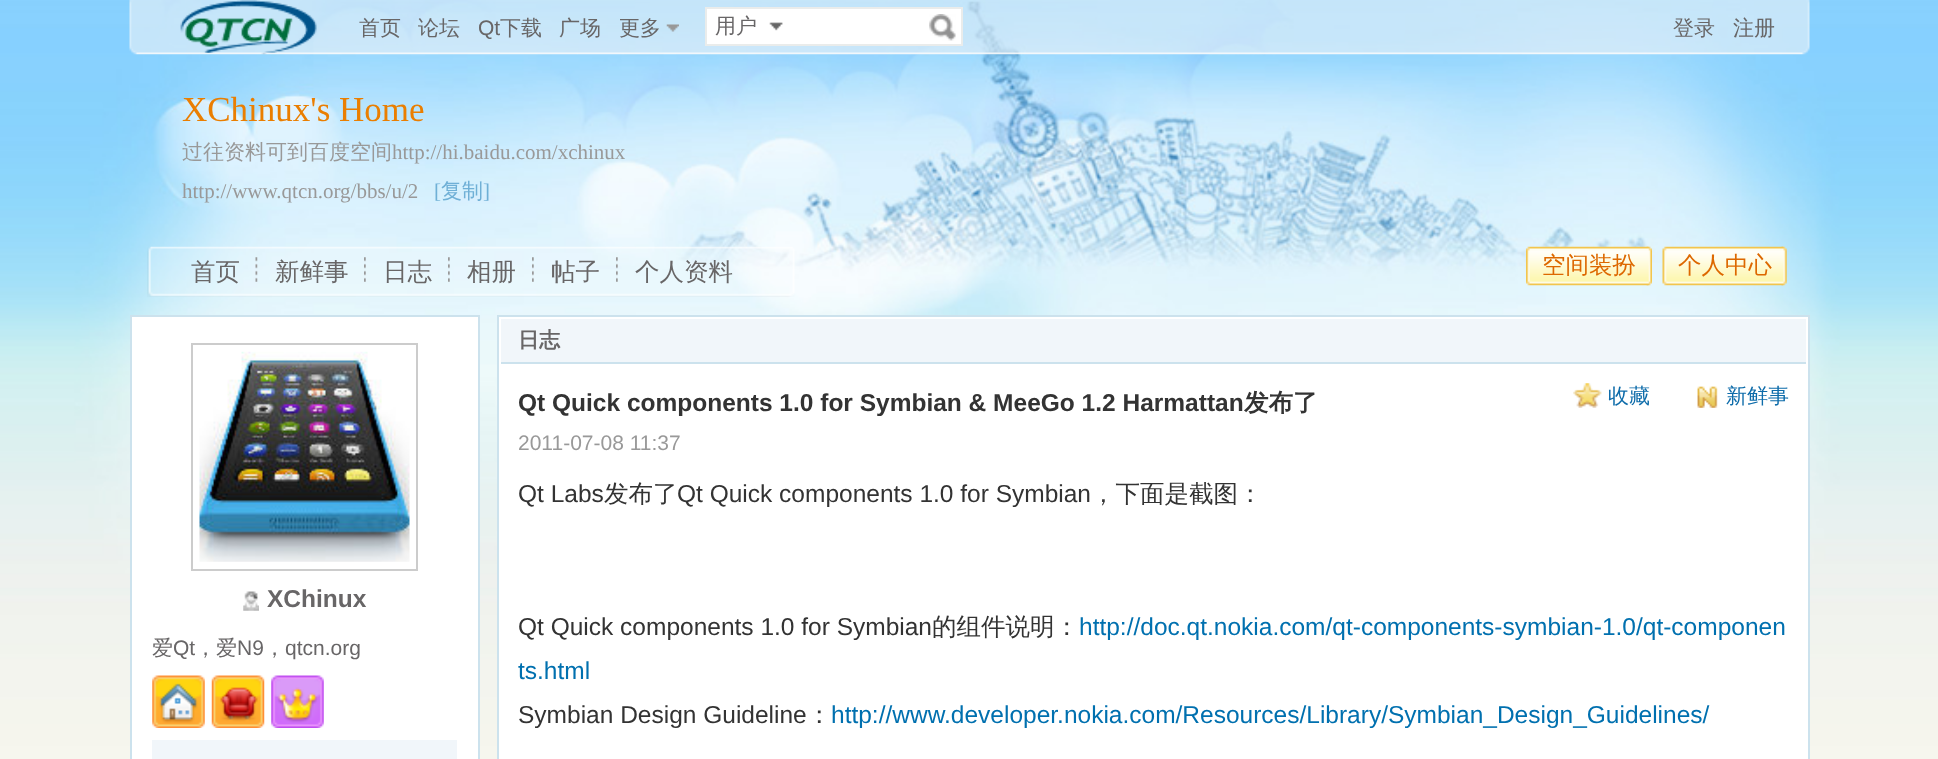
<?xml version="1.0" encoding="UTF-8"?>
<svg xmlns="http://www.w3.org/2000/svg" width="1938" height="759">
    <rect width="100%" height="100%" fill="#FFFFFF"/>
    <image x="0" y="0" width="1938" height="759" href="img_01.png"/>
    <image x="129" y="0" width="1681" height="55" href="img_02.png"/>
    <image x="180" y="0" width="137" height="55" href="img_03.png"/>
    <text x="359" y="35" font-family="WenQuanYi Zen Hei" font-size="21" font-weight="500" fill="#686667">首页</text>
    <text x="418" y="35" font-family="WenQuanYi Zen Hei" font-size="21" font-weight="500" fill="#686667">论坛</text>
    <text x="478" y="35" font-family="Liberation Sans" font-size="21" fill="#686667">Qt</text>
    <text x="500" y="35" font-family="WenQuanYi Zen Hei" font-size="21" font-weight="500" fill="#686667">下载</text>
    <text x="559" y="35" font-family="WenQuanYi Zen Hei" font-size="21" font-weight="500" fill="#686667">广场</text>
    <image x="666" y="24" width="13" height="8" href="img_04.png"/>
    <text x="619" y="35" font-family="WenQuanYi Zen Hei" font-size="21" font-weight="500" fill="#686667">更多</text>
    <rect x="706" y="8" width="256" height="37" fill="#FFFFFF" stroke="#EAECEB" stroke-width="2"/>
    <image x="769" y="22" width="14" height="9" href="img_05.png"/>
    <text x="715" y="33" font-family="WenQuanYi Zen Hei" font-size="21" font-weight="500" fill="#686667">用户</text>
    <image x="929" y="14" width="27" height="27" href="img_06.png"/>
    <text x="1673" y="35" font-family="WenQuanYi Zen Hei" font-size="21" font-weight="500" fill="#686667">登录</text>
    <text x="1733" y="35" font-family="WenQuanYi Zen Hei" font-size="21" font-weight="500" fill="#686667">注册</text>
    <text x="182" y="121" font-family="Liberation Serif" font-size="35" fill="#EA7E00">XChinux's Home</text>
    <text x="182" y="159" font-family="WenQuanYi Zen Hei" font-size="21" font-weight="500" fill="#999999">过往资料可到百度空间</text>
    <text x="392" y="159" font-family="Liberation Serif" font-size="21" fill="#999999">http://hi.baidu.com/xchinux</text>
    <text x="182" y="198" font-family="Liberation Serif" font-size="21" fill="#999999">http://www.qtcn.org/bbs/u/2</text>
    <text x="434" y="198" font-family="Liberation Serif" font-size="21" fill="#6FB0D6">[</text>
    <text x="441" y="198" font-family="WenQuanYi Zen Hei" font-size="21" font-weight="500" fill="#6FB0D6">复制</text>
    <text x="483" y="198" font-family="Liberation Serif" font-size="21" fill="#6FB0D6">]</text>
    <image x="147" y="246" width="648" height="51" href="img_07.png"/>
    <image x="255" y="257" width="3" height="25" href="img_08.png"/>
    <text x="191" y="280" font-family="WenQuanYi Zen Hei" font-size="24.5" font-weight="500" fill="#686667">首页</text>
    <image x="364" y="257" width="2" height="25" href="img_09.png"/>
    <text x="275" y="280" font-family="WenQuanYi Zen Hei" font-size="24.5" font-weight="500" fill="#686667">新鲜事</text>
    <image x="448" y="257" width="2" height="25" href="img_10.png"/>
    <text x="383" y="280" font-family="WenQuanYi Zen Hei" font-size="24.5" font-weight="500" fill="#686667">日志</text>
    <image x="532" y="257" width="2" height="25" href="img_11.png"/>
    <text x="467" y="280" font-family="WenQuanYi Zen Hei" font-size="24.5" font-weight="500" fill="#686667">相册</text>
    <image x="616" y="257" width="2" height="25" href="img_12.png"/>
    <text x="551" y="280" font-family="WenQuanYi Zen Hei" font-size="24.5" font-weight="500" fill="#686667">帖子</text>
    <text x="635" y="280" font-family="WenQuanYi Zen Hei" font-size="24.5" font-weight="500" fill="#686667">个人资料</text>
    <image x="1646" y="246" width="6" height="40" href="img_13.png"/>
    <image x="1526" y="246" width="123" height="40" href="img_14.png"/>
    <text x="1542" y="273" font-family="WenQuanYi Zen Hei" font-size="23.5" font-weight="500" fill="#DD6800">空间装扮</text>
    <image x="1781" y="246" width="6" height="40" href="img_15.png"/>
    <image x="1662" y="246" width="122" height="40" href="img_16.png"/>
    <text x="1678" y="273" font-family="WenQuanYi Zen Hei" font-size="23.5" font-weight="500" fill="#DD6800">个人中心</text>
    <rect x="131" y="316" width="348" height="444" fill="#FFFFFF" stroke="#CCE2ED" stroke-width="2"/>
    <rect x="192" y="344" width="225" height="226" fill="none" stroke="#CCCCCC" stroke-width="2"/>
    <image x="199" y="351" width="211" height="211" href="img_17.png"/>
    <image x="243" y="591" width="16" height="20" href="img_18.png"/>
    <text x="267" y="607" font-family="Liberation Sans" font-size="24.5" font-weight="700" fill="#686667">XChinux</text>
    <text x="152" y="655" font-family="WenQuanYi Zen Hei" font-size="21" font-weight="500" fill="#686667">爱</text>
    <text x="173" y="655" font-family="Liberation Sans" font-size="21" fill="#686667">Qt</text>
    <text x="195" y="655" font-family="WenQuanYi Zen Hei" font-size="21" font-weight="500" fill="#686667">，爱</text>
    <text x="237" y="655" font-family="Liberation Sans" font-size="21" fill="#686667">N9</text>
    <text x="264" y="655" font-family="WenQuanYi Zen Hei" font-size="21" font-weight="500" fill="#686667">，</text>
    <text x="285" y="655" font-family="Liberation Sans" font-size="21" fill="#686667">qtcn.org</text>
    <image x="152" y="675" width="53" height="53" href="img_19.png"/>
    <image x="211" y="675" width="54" height="53" href="img_20.png"/>
    <image x="271" y="675" width="53" height="53" href="img_21.png"/>
    <rect x="152" y="740" width="305" height="19" fill="#F1F6FA"/>
    <rect x="498" y="316" width="1311" height="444" fill="#FFFFFF" stroke="#CCE2ED" stroke-width="2"/>
    <rect x="501" y="319" width="1305" height="43" fill="#F1F6FA"/>
    <rect x="501" y="362" width="1305" height="2" fill="#CCE2ED"/>
    <text x="518" y="347" font-family="WenQuanYi Zen Hei" font-size="21" font-weight="700" fill="#686667">日志</text>
    <text x="518" y="411" font-family="Liberation Sans" font-size="24.5" font-weight="700" fill="#333333">Qt Quick components 1.0 for Symbian &amp; MeeGo 1.2 Harmattan</text>
    <text x="1244" y="411" font-family="WenQuanYi Zen Hei" font-size="24.5" font-weight="700" fill="#333333">发布了</text>
    <image x="1573" y="383" width="29" height="25" href="img_22.png"/>
    <text x="1608" y="403" font-family="WenQuanYi Zen Hei" font-size="21" font-weight="500" fill="#0E6CAA">收藏</text>
    <image x="1697" y="386" width="21" height="22" href="img_23.png"/>
    <text x="1726" y="403" font-family="WenQuanYi Zen Hei" font-size="21" font-weight="500" fill="#0E6CAA">新鲜事</text>
    <text x="518" y="450" font-family="Liberation Sans" font-size="21" fill="#999999">2011-07-08 11:37</text>
    <text x="518" y="502" font-family="Liberation Sans" font-size="24.5" fill="#333333">Qt Labs</text>
    <text x="604" y="502" font-family="WenQuanYi Zen Hei" font-size="24.5" font-weight="500" fill="#333333">发布了</text>
    <text x="677" y="502" font-family="Liberation Sans" font-size="24.5" fill="#333333">Qt Quick components 1.0 for Symbian</text>
    <text x="1091" y="502" font-family="WenQuanYi Zen Hei" font-size="24.5" font-weight="500" fill="#333333">，下面是截图：</text>
    <text x="518" y="635" font-family="Liberation Sans" font-size="24.5" fill="#333333">Qt Quick components 1.0 for Symbian</text>
    <text x="932" y="635" font-family="WenQuanYi Zen Hei" font-size="24.5" font-weight="500" fill="#333333">的组件说明：</text>
    <text x="1079" y="635" font-family="Liberation Sans" font-size="24.5" fill="#0070AF">http://doc.qt.nokia.com/qt-components-symbian-1.0/qt-componen</text>
    <text x="518" y="679" font-family="Liberation Sans" font-size="24.5" fill="#0070AF">ts.html</text>
    <text x="518" y="723" font-family="Liberation Sans" font-size="24.5" fill="#333333">Symbian Design Guideline</text>
    <text x="807" y="723" font-family="WenQuanYi Zen Hei" font-size="24.5" font-weight="500" fill="#333333">：</text>
    <text x="831" y="723" font-family="Liberation Sans" font-size="24.5" fill="#0070AF">http://www.developer.nokia.com/Resources/Library/Symbian_Design_Guidelines/</text>
</svg>
